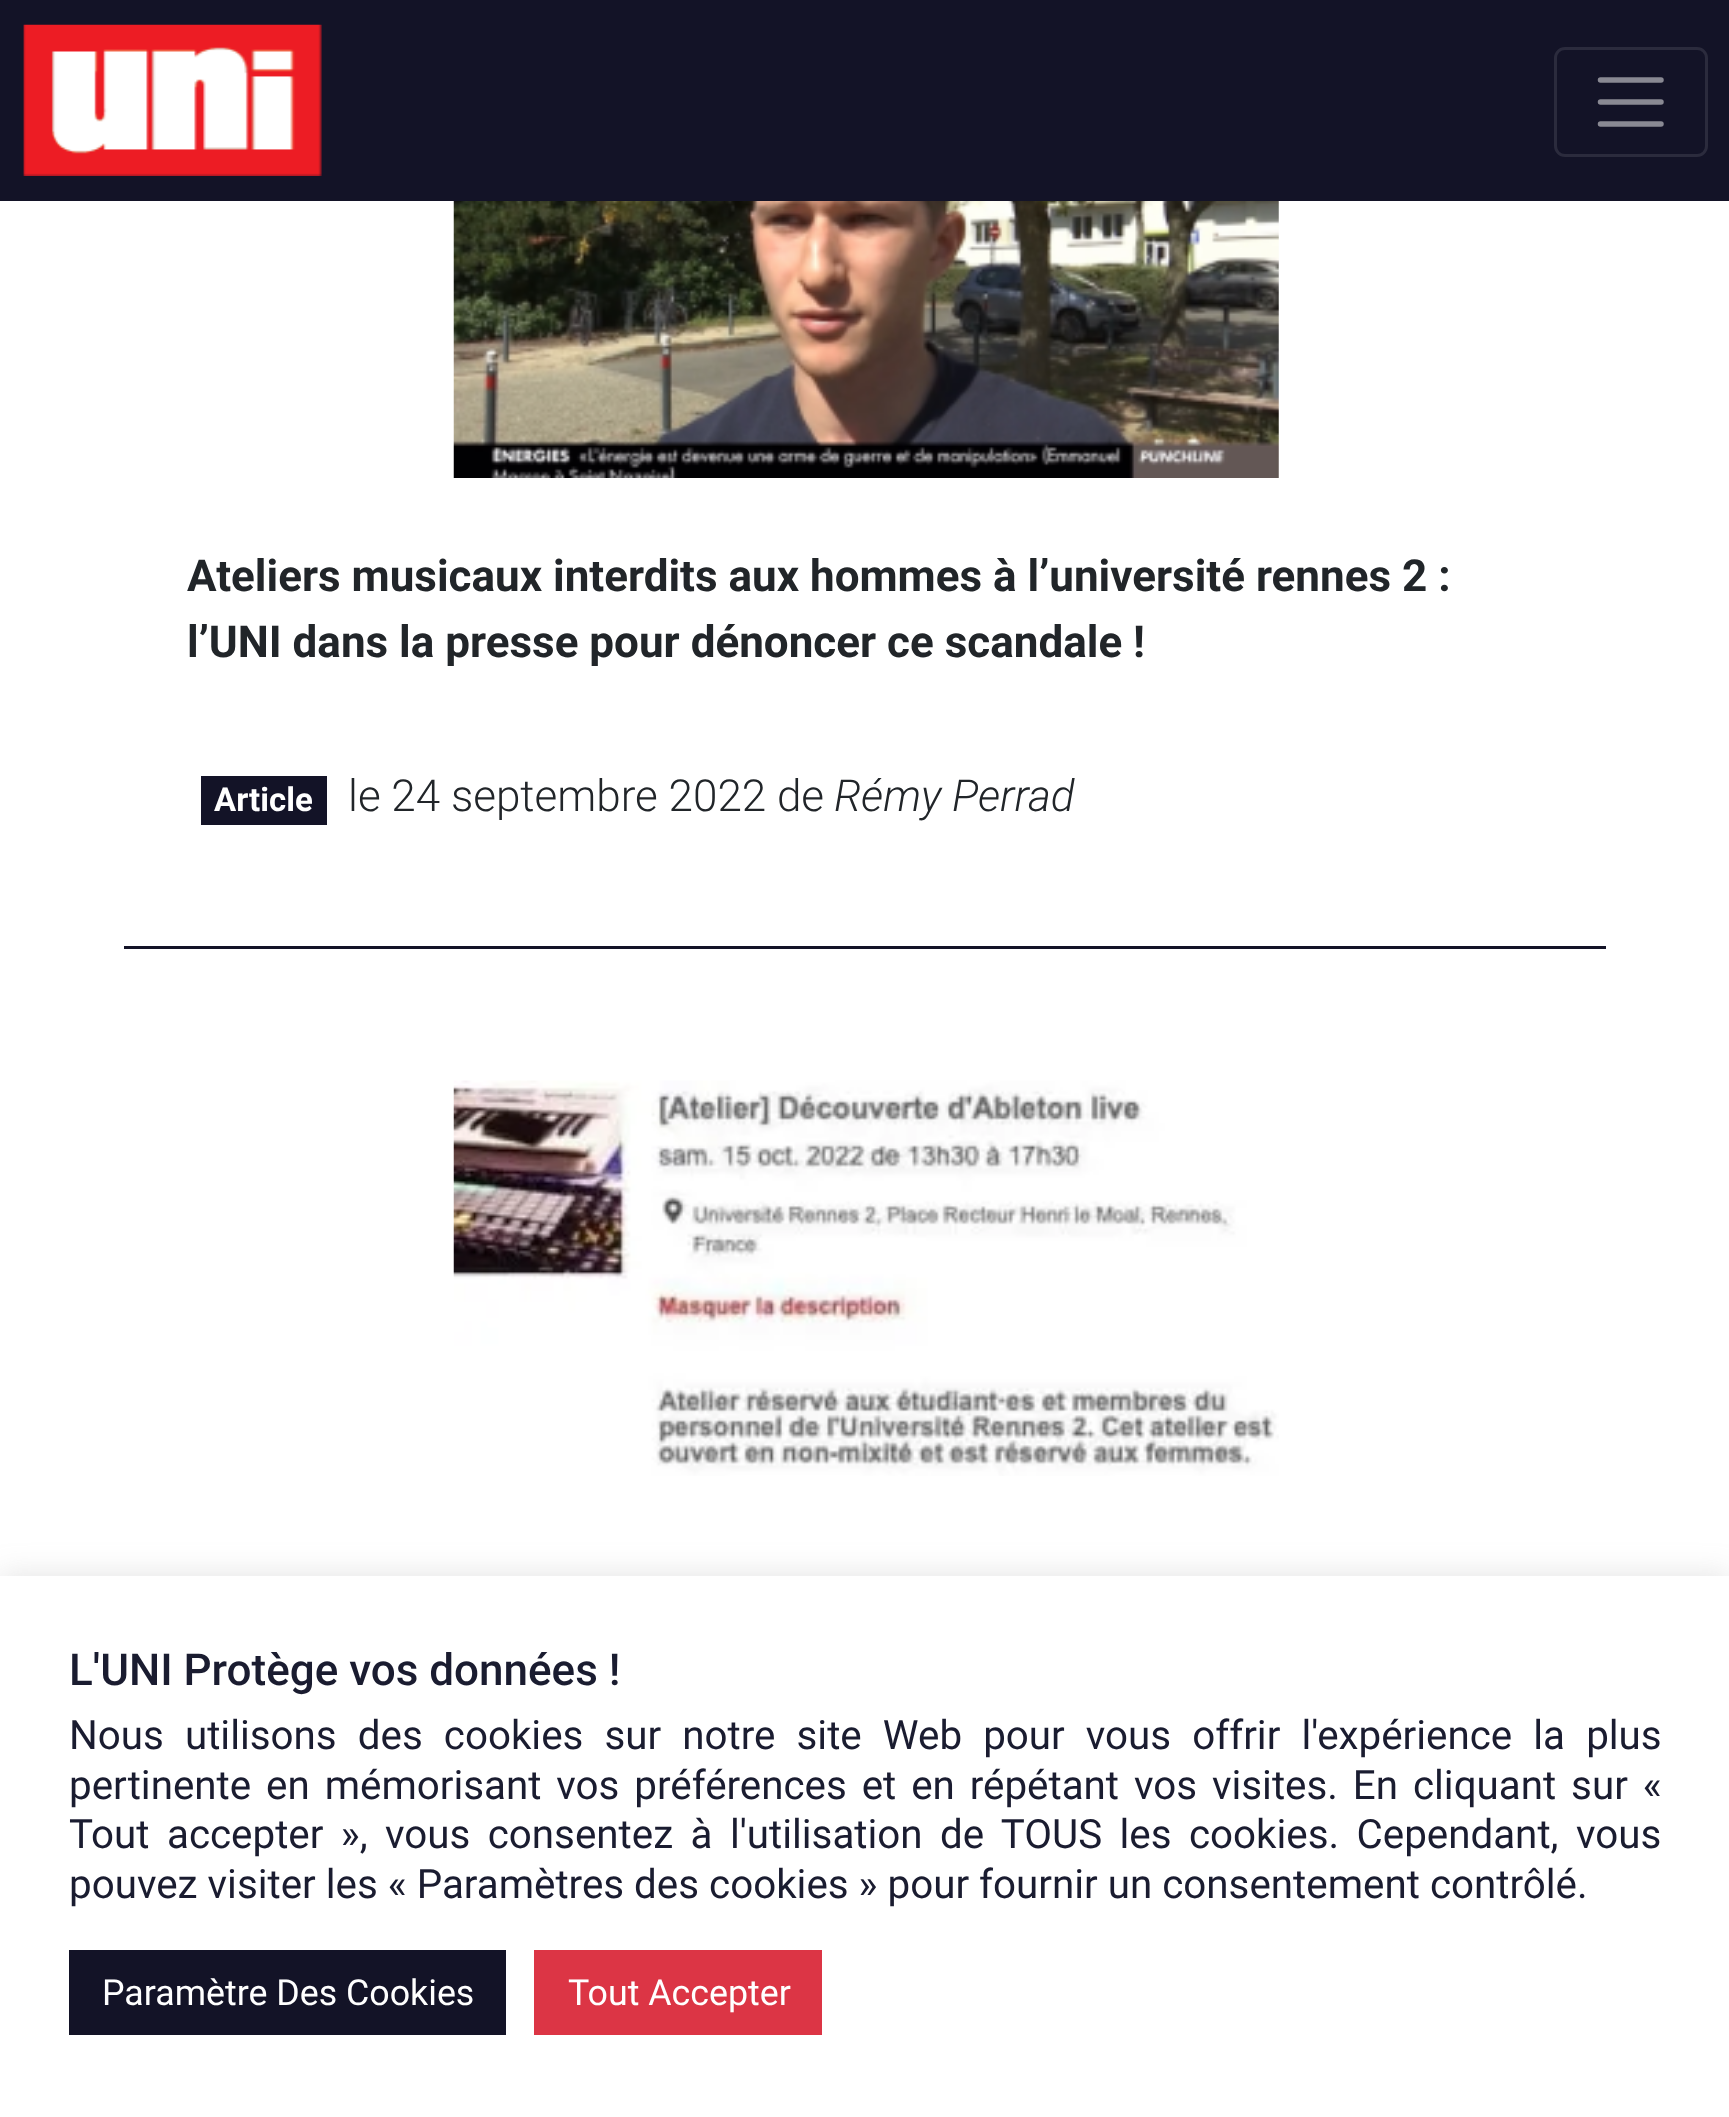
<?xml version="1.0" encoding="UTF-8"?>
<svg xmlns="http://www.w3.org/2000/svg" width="1729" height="2117">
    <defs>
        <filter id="blur1" x="-50%" y="-200%" width="200%" height="500%"><feGaussianBlur stdDeviation="14"/></filter>
    </defs>
    <rect width="100%" height="100%" fill="#FFFFFF"/>
    <rect x="0" y="0" width="1729" height="201" fill="#131327"/>
    <image x="23" y="24" width="299" height="152" href="img_01.png"/>
    <rect x="1555.5" y="48.5" width="151" height="107" rx="9.5" fill="none" stroke="#2B2B3D" stroke-width="3"/>
    <path d="M 1600.5 80 H 1661 M 1600.5 102 H 1661 M 1600.5 124 H 1661" fill="none" stroke="#898993" stroke-width="5.5" stroke-linecap="round"/>
    <image x="453" y="201" width="826" height="277" href="img_02.png"/>
    <text font-family="Roboto" font-size="44" font-weight="700" fill="#212529">
        <tspan x="187" y="591">Ateliers musicaux interdits aux hommes à l’université rennes 2 :</tspan>
        <tspan x="187" y="657">l’UNI dans la presse pour dénoncer ce scandale !</tspan>
    </text>
    <rect x="201" y="776" width="126" height="49" fill="#131327"/>
    <text x="214" y="811" font-family="Roboto" font-size="33" font-weight="700" fill="#FFFFFF">Article</text>
    <text x="348" y="811" font-family="Roboto" font-size="44" font-weight="300" fill="#212529">le 24 septembre 2022 de</text>
    <text x="834" y="811" font-family="Roboto" font-size="44" font-weight="300" font-style="italic" fill="#212529">Rémy Perrad</text>
    <rect x="124" y="946" width="1482" height="3" fill="#131327"/>
    <image x="453" y="1080" width="826" height="396" href="img_03.png"/>
    <rect x="0" y="1573" width="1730" height="542" fill="#ACABAB" fill-opacity="0.3" filter="url(#blur1)"/>
    <rect x="0" y="1576" width="1729" height="541" fill="#FFFFFF"/>
    <text x="69" y="1685" font-family="Roboto" font-size="44" font-weight="500" fill="#1A1C30">L'UNI Protège vos données !</text>
    <text font-family="Roboto" font-size="40.35" fill="#1A1C30">
        <tspan x="69" y="1749" word-spacing="11.1">Nous utilisons des cookies sur notre site Web pour vous offrir l'expérience la plus</tspan>
        <tspan x="69" y="1799" word-spacing="4.9">pertinente en mémorisant vos préférences et en répétant vos visites. En cliquant sur «</tspan>
        <tspan x="69" y="1848" word-spacing="7.4">Tout accepter », vous consentez à l'utilisation de TOUS les cookies. Cependant, vous</tspan>
        <tspan x="69" y="1898">pouvez visiter les « Paramètres des cookies » pour fournir un consentement contrôlé.</tspan>
    </text>
    <rect x="69" y="1950" width="437" height="85" fill="#131327"/>
    <text x="102" y="2005" font-family="Roboto" font-size="35.75" fill="#FFFFFF">Paramètre Des Cookies</text>
    <rect x="534" y="1950" width="288" height="85" fill="#DC3545"/>
    <text x="568" y="2005" font-family="Roboto" font-size="35.75" fill="#FFFFFF">Tout Accepter</text>
</svg>
